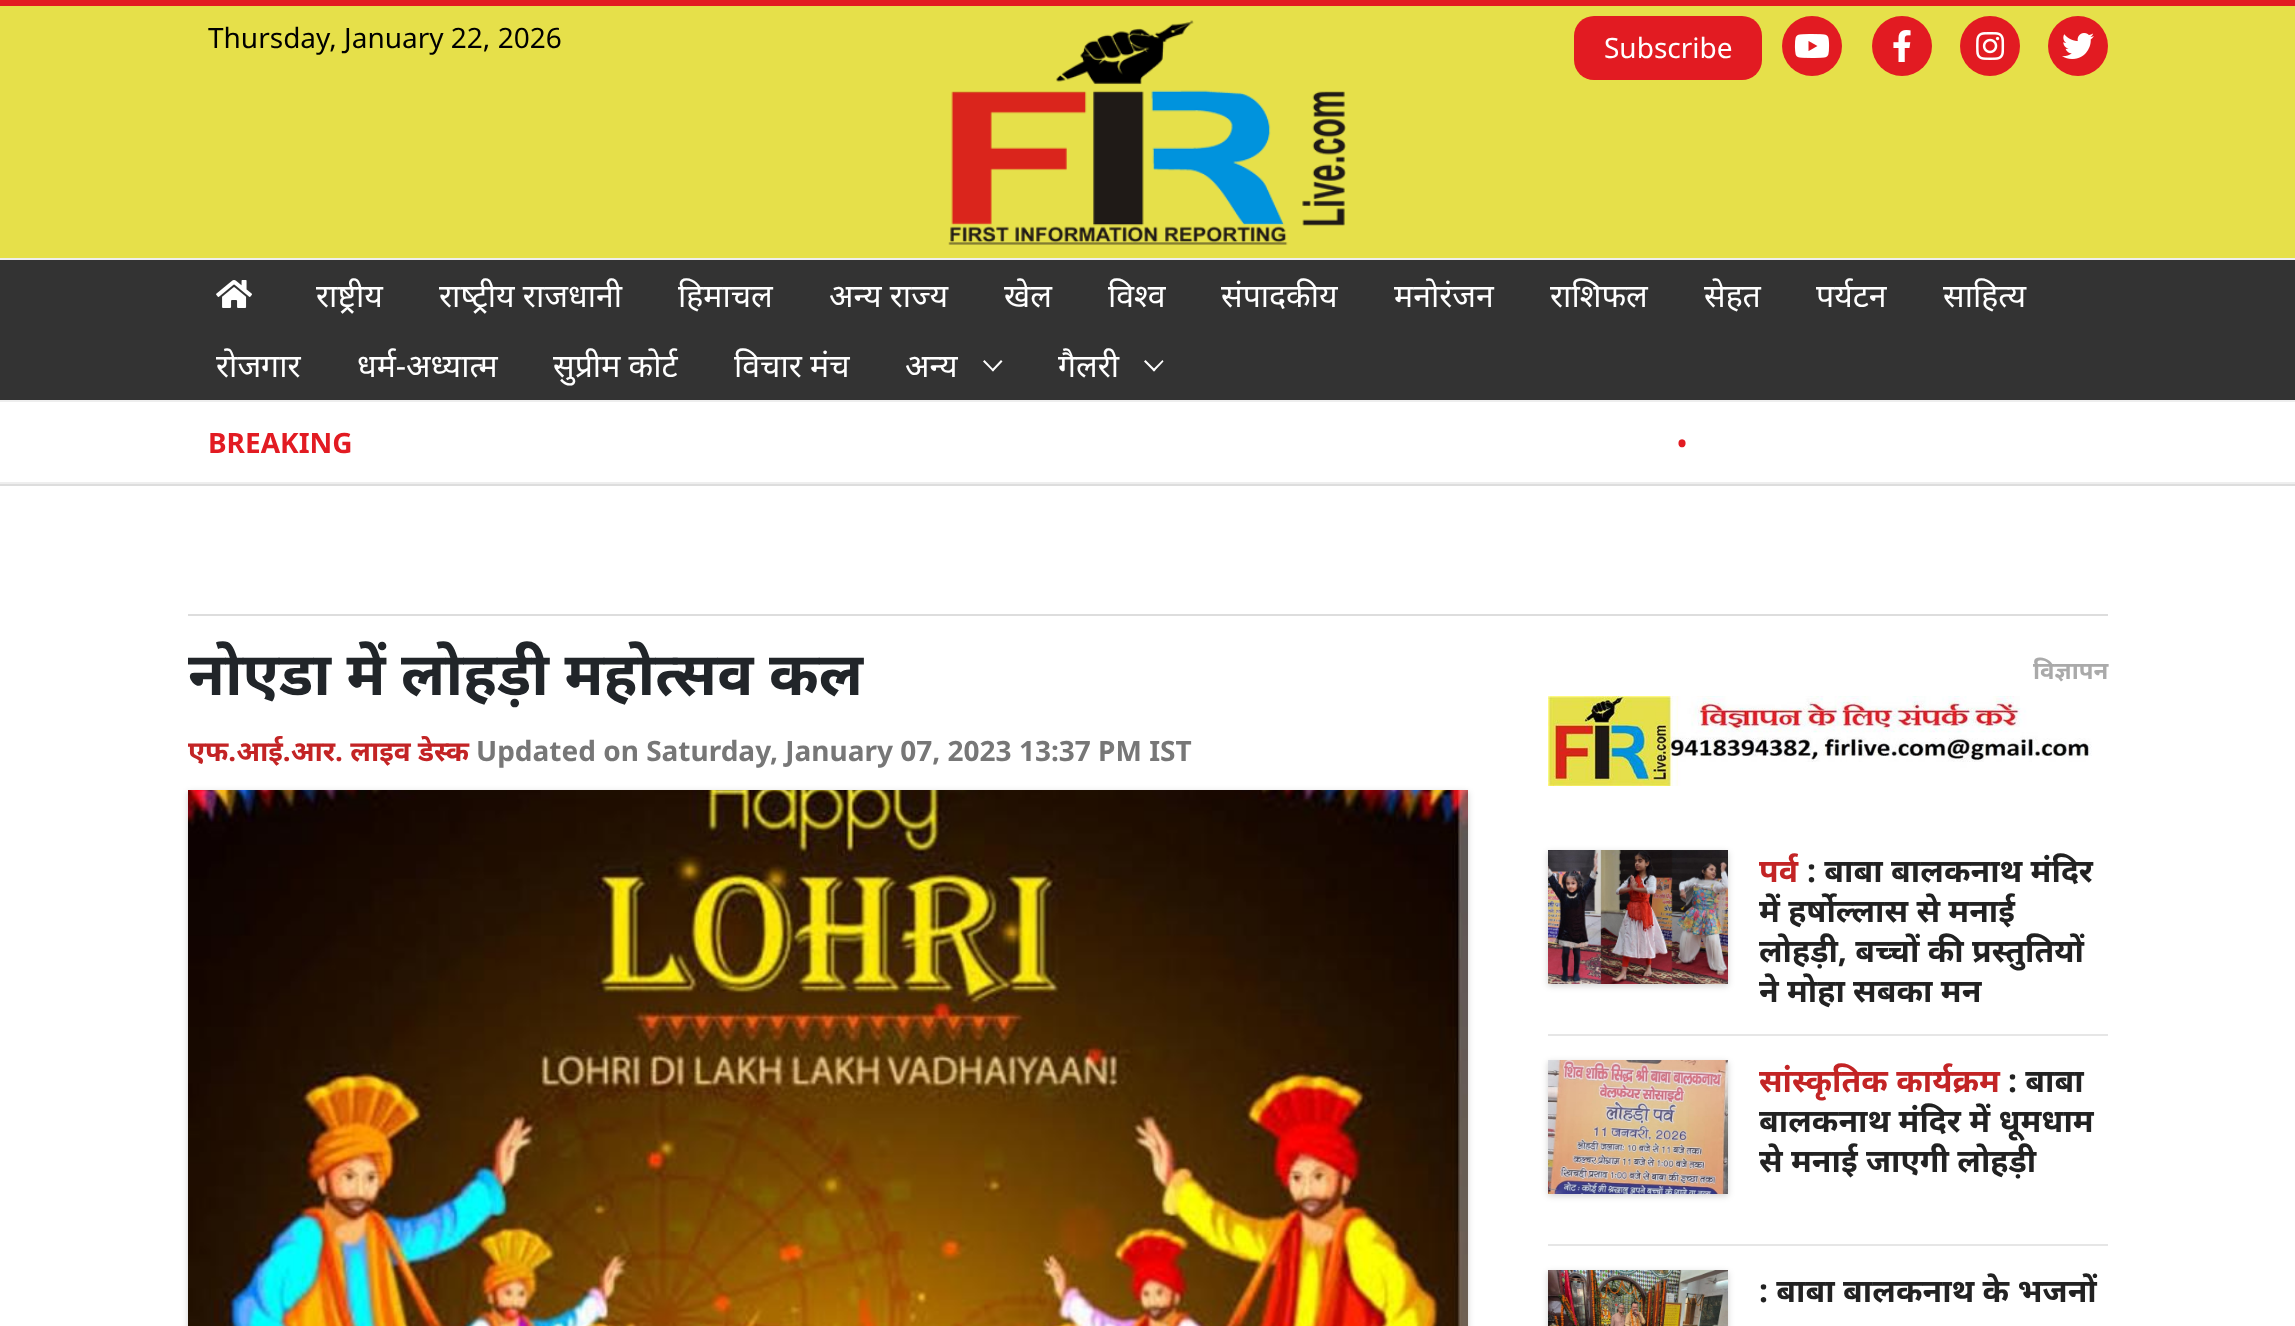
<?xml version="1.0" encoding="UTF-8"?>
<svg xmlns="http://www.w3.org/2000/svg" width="2295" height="1326">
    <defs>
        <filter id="blur1" x="-50%" y="-200%" width="200%" height="500%"><feGaussianBlur stdDeviation="3"/></filter>
    </defs>
    <rect width="100%" height="100%" fill="#FFFFFF"/>
    <rect x="0" y="6" width="2295" height="252" fill="#E6E04A"/>
    <rect x="0" y="0" width="2295" height="6" fill="#E21B22"/>
    <image x="948" y="20" width="398" height="225" href="img_01.png"/>
    <text x="208" y="48" font-family="Noto Sans" font-size="28" fill="#000000">Thursday, January 22, 2026</text>
    <rect x="1574" y="16" width="188" height="64" rx="20" fill="#E21B22"/>
    <text x="1604" y="58" font-family="Noto Sans" font-size="28" fill="#FFFFFF">Subscribe</text>
    <circle cx="1812" cy="46" r="30" fill="#E21B22"/>
    <image x="1794" y="34" width="36" height="24" href="img_02.png"/>
    <circle cx="1902" cy="46" r="30" fill="#E21B22"/>
    <image x="1893" y="30" width="18" height="32" href="img_03.png"/>
    <circle cx="1990" cy="46" r="30" fill="#E21B22"/>
    <image x="1976" y="32" width="29" height="28" href="img_04.png"/>
    <circle cx="2078" cy="46" r="30" fill="#E21B22"/>
    <image x="2062" y="33" width="32" height="26" href="img_05.png"/>
    <rect x="0" y="260" width="2295" height="140" fill="#333333"/>
    <rect x="0" y="258" width="2295" height="2" fill="#EEEEEE"/>
    <image x="216" y="280" width="36" height="28" href="img_06.png"/>
    <text x="316" y="307" font-family="Noto Sans" font-size="32" fill="#FFFFFF">राष्ट्रीय</text>
    <text x="439" y="307" font-family="Noto Sans" font-size="32" fill="#FFFFFF">राष्‍ट्रीय राजधानी</text>
    <text x="678" y="307" font-family="Noto Sans" font-size="32" fill="#FFFFFF">हिमाचल</text>
    <text x="829" y="307" font-family="Noto Sans" font-size="32" fill="#FFFFFF">अन्‍य राज्‍य</text>
    <text x="1004" y="307" font-family="Noto Sans" font-size="32" fill="#FFFFFF">खेल</text>
    <text x="1108" y="307" font-family="Noto Sans" font-size="32" fill="#FFFFFF">विश्‍व</text>
    <text x="1221" y="307" font-family="Noto Sans" font-size="32" fill="#FFFFFF">संपादकीय</text>
    <text x="1394" y="307" font-family="Noto Sans" font-size="32" fill="#FFFFFF">मनोरंजन</text>
    <text x="1550" y="307" font-family="Noto Sans" font-size="32" fill="#FFFFFF">राशिफल</text>
    <text x="1704" y="307" font-family="Noto Sans" font-size="32" fill="#FFFFFF">सेहत</text>
    <text x="1816" y="307" font-family="Noto Sans" font-size="32" fill="#FFFFFF">पर्यटन</text>
    <text x="1943" y="307" font-family="Noto Sans" font-size="32" fill="#FFFFFF">साहित्‍य</text>
    <text x="216" y="377" font-family="Noto Sans" font-size="32" fill="#FFFFFF">रोजगार</text>
    <text x="357" y="377" font-family="Noto Sans" font-size="32" fill="#FFFFFF">धर्म-अध्‍यात्‍म</text>
    <text x="553" y="377" font-family="Noto Sans" font-size="32" fill="#FFFFFF">सुप्रीम कोर्ट</text>
    <text x="734" y="377" font-family="Noto Sans" font-size="32" fill="#FFFFFF">विचार मंच</text>
    <text x="905" y="377" font-family="Noto Sans" font-size="32" fill="#FFFFFF">अन्य</text>
    <path d="M 1001 360 L 1002.5 361.5 L 993 371.5 L 991.5 370 Z" fill="#FFFFFF"/>
    <path d="M 984.5 360 L 994 370 L 993 371.5 L 983 361.5 Z" fill="#FFFFFF"/>
    <text x="1058" y="377" font-family="Noto Sans" font-size="32" fill="#FFFFFF">गैलरी</text>
    <path d="M 1162.5 360 L 1163.5 361.5 L 1154 371.5 L 1152.5 370 Z" fill="#FFFFFF"/>
    <path d="M 1145.5 360 L 1155.5 370 L 1154 371.5 L 1144 361.5 Z" fill="#FFFFFF"/>
    <rect x="0" y="400" width="2295" height="2" fill="#EEEEEE"/>
    <rect x="0" y="482" width="2295" height="2" fill="#EEEEEE"/>
    <text x="208" y="453" font-family="Noto Sans" font-size="28" font-weight="700" fill="#E21B22">BREAKING</text>
    <text x="1676" y="455" font-family="Noto Sans" font-size="32" fill="#E21B22">•</text>
    <rect x="0" y="484" width="2295" height="2" fill="#DDDDDD"/>
    <rect x="188" y="614" width="1920" height="2" fill="#DDDDDD"/>
    <text x="188" y="695" font-family="Noto Sans" font-size="60" font-weight="700" fill="#212529">नोएडा में लोहड़ी महोत्सव कल</text>
    <text x="188" y="761" font-family="Noto Sans" font-size="28" font-weight="700" fill="#C32425">एफ.आई.आर. लाइव डेस्क</text>
    <text x="476" y="761" font-family="Noto Sans" font-size="28" font-weight="700" fill="#777777">Updated on Saturday, January 07, 2023 13:37 PM IST</text>
    <rect x="188" y="792" width="1280" height="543" fill="#000000" fill-opacity="0.18" filter="url(#blur1)"/>
    <image x="188" y="790" width="1280" height="536" href="img_07.png"/>
    <text x="2033" y="679" font-family="Noto Sans" font-size="24" font-weight="700" fill="#AAAAAA">विज्ञापन</text>
    <image x="1548" y="696" width="544" height="90" href="img_08.png"/>
    <rect x="1548" y="1034" width="560" height="2" fill="#E6E6E6"/>
    <rect x="1548" y="852" width="180" height="134" fill="#000000" fill-opacity="0.18" filter="url(#blur1)"/>
    <image x="1548" y="850" width="180" height="134" href="img_09.png"/>
    <text x="1759" y="882" font-family="Noto Sans" font-size="32" font-weight="700" fill="#C32425">पर्व</text>
    <text x="1807" y="882" font-family="Noto Sans" font-size="32" font-weight="700" fill="#222222">: बाबा बालकनाथ मंदिर</text>
    <text font-family="Noto Sans" font-size="32" font-weight="700" fill="#222222">
        <tspan x="1759" y="922">में हर्षोल्लास से मनाई</tspan>
        <tspan x="1759" y="962">लोहड़ी, बच्चों की प्रस्तुतियों</tspan>
        <tspan x="1759" y="1002">ने मोहा सबका मन</tspan>
    </text>
    <rect x="1548" y="1244" width="560" height="2" fill="#E6E6E6"/>
    <rect x="1548" y="1062" width="180" height="134" fill="#000000" fill-opacity="0.18" filter="url(#blur1)"/>
    <image x="1548" y="1060" width="180" height="134" href="img_10.png"/>
    <text x="1759" y="1092" font-family="Noto Sans" font-size="32" font-weight="700" fill="#C32425">सांस्कृतिक कार्यक्रम</text>
    <text x="2008" y="1092" font-family="Noto Sans" font-size="32" font-weight="700" fill="#222222">: बाबा</text>
    <text font-family="Noto Sans" font-size="32" font-weight="700" fill="#222222">
        <tspan x="1759" y="1132">बालकनाथ मंदिर में धूमधाम</tspan>
        <tspan x="1759" y="1172">से मनाई जाएगी लोहड़ी</tspan>
    </text>
    <rect x="1548" y="1272" width="180" height="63" fill="#000000" fill-opacity="0.18" filter="url(#blur1)"/>
    <image x="1548" y="1270" width="180" height="56" href="img_11.png"/>
    <text x="1759" y="1302" font-family="Noto Sans" font-size="32" font-weight="700" fill="#222222">: बाबा बालकनाथ के भजनों</text>
</svg>
